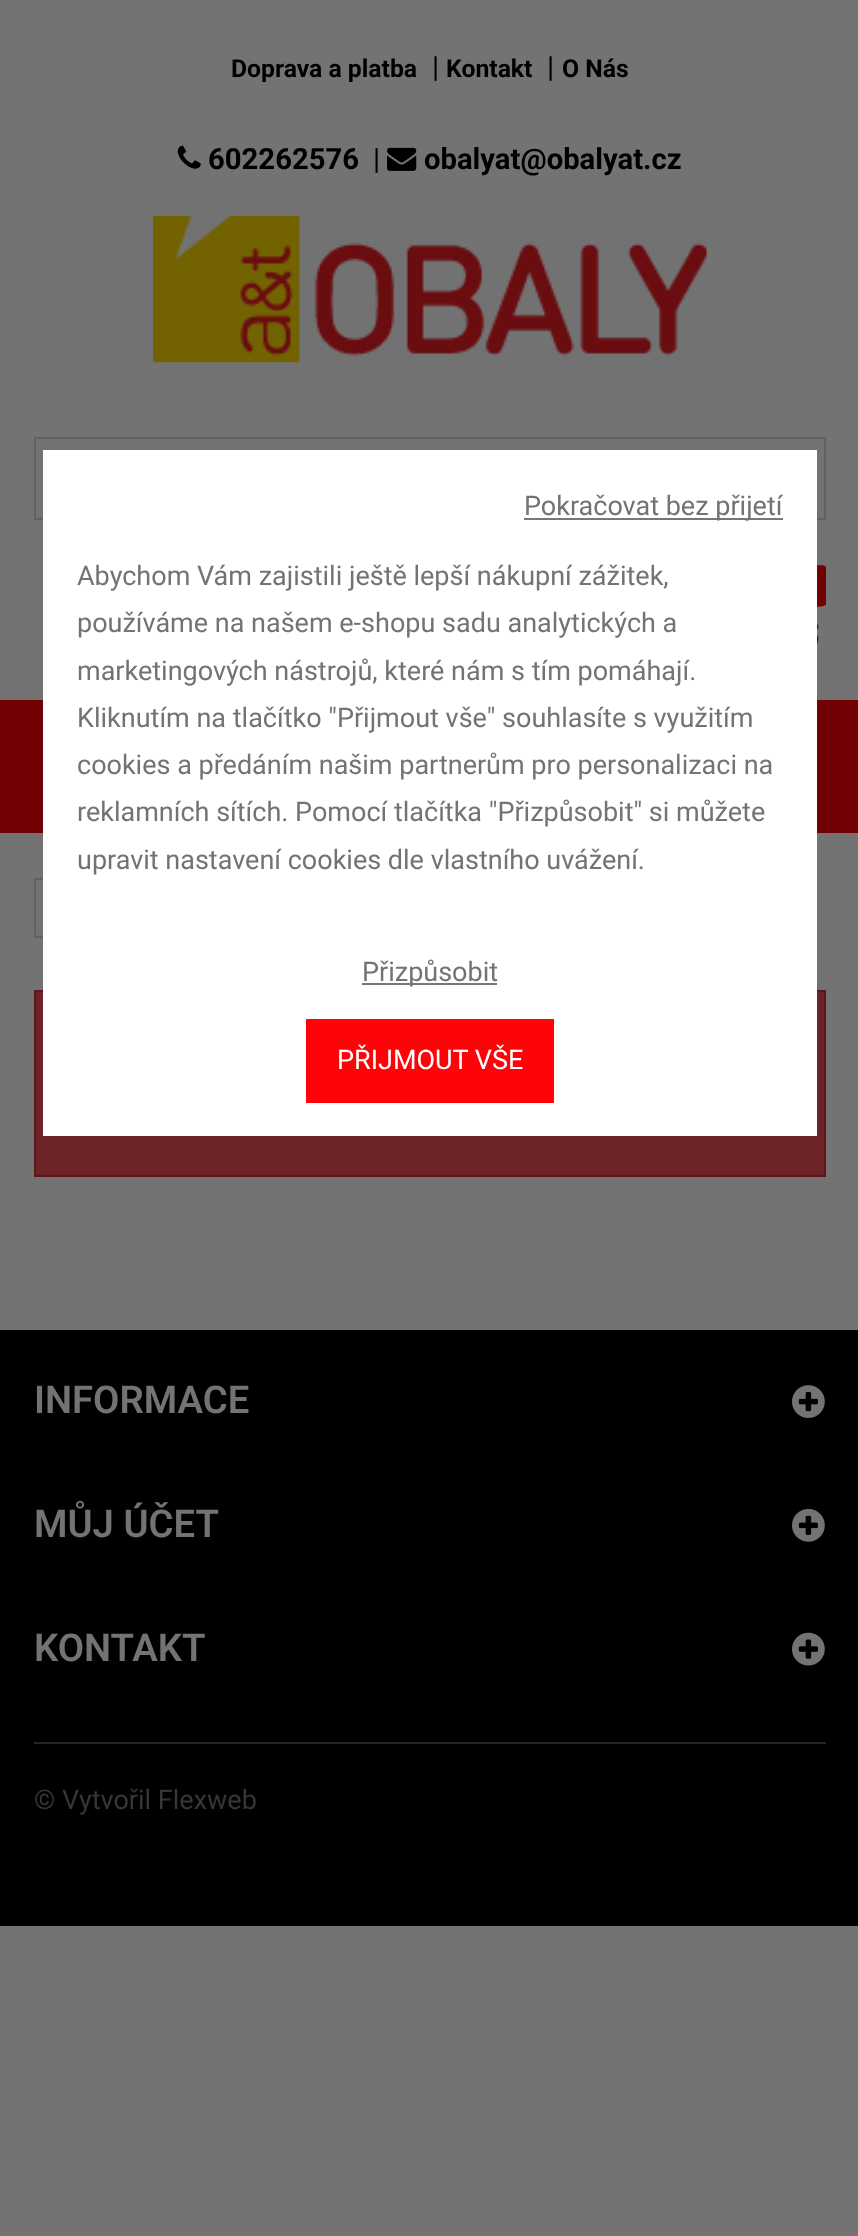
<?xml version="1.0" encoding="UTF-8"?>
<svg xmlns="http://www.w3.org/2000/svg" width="858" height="2236">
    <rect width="100%" height="100%" fill="#737373"/>
    <text x="231" y="77" font-family="Roboto" font-size="24.75" font-weight="700" fill="#000000">Doprava a platba</text>
    <text x="432" y="77" font-family="Roboto" font-size="29.25" fill="#000000">|</text>
    <text x="446" y="77" font-family="Roboto" font-size="24.75" font-weight="700" fill="#000000">Kontakt</text>
    <text x="547" y="77" font-family="Roboto" font-size="29.25" fill="#000000">|</text>
    <text x="562" y="77" font-family="Roboto" font-size="24.75" font-weight="700" fill="#000000">O Nás</text>
    <image x="177" y="145" width="24" height="24" href="img_01.png"/>
    <text x="208" y="169" font-family="Roboto" font-size="29.25" font-weight="700" fill="#000000">602262576</text>
    <text x="373" y="169" font-family="Roboto" font-size="29.25" fill="#000000">|</text>
    <image x="387" y="147" width="30" height="24" href="img_02.png"/>
    <text x="424" y="169" font-family="Roboto" font-size="29.25" font-weight="700" fill="#000000">obalyat@obalyat.cz</text>
    <image x="153" y="216" width="554" height="147" href="img_03.png"/>
    <rect x="35" y="438" width="790" height="81" fill="none" stroke="#616161" stroke-width="2"/>
    <image x="817" y="565" width="9" height="79" href="img_04.png"/>
    <rect x="0" y="700" width="858" height="133" fill="#730104"/>
    <rect x="0" y="1330" width="858" height="596" fill="#000000"/>
    <rect x="36" y="934" width="7" height="2" fill="#6F6F6F"/>
    <rect x="35" y="879" width="99" height="58" fill="none" stroke="#616161" stroke-width="2"/>
    <rect x="35" y="991" width="790" height="185" fill="#6D2429" stroke="#5F161B" stroke-width="2"/>
    <rect x="43" y="450" width="774" height="686" fill="#FFFFFF"/>
    <rect x="524" y="518" width="259" height="2" fill="#777777"/>
    <text x="524" y="515" font-family="Roboto" font-size="27" fill="#737373">Pokračovat bez přijetí</text>
    <text font-family="Roboto" font-size="27" fill="#737373">
        <tspan x="77" y="585">Abychom Vám zajistili ještě lepší nákupní zážitek,</tspan>
        <tspan x="77" y="632">používáme na našem e-shopu sadu analytických a</tspan>
        <tspan x="77" y="680">marketingových nástrojů, které nám s tím pomáhají.</tspan>
        <tspan x="77" y="727">Kliknutím na tlačítko "Přijmout vše" souhlasíte s využitím</tspan>
        <tspan x="77" y="774">cookies a předáním našim partnerům pro personalizaci na</tspan>
        <tspan x="77" y="821">reklamních sítích. Pomocí tlačítka "Přizpůsobit" si můžete</tspan>
        <tspan x="77" y="869">upravit nastavení cookies dle vlastního uvážení.</tspan>
    </text>
    <rect x="362" y="983" width="135" height="2" fill="#777777"/>
    <text x="362" y="981" font-family="Roboto" font-size="27" fill="#737373">Přizpůsobit</text>
    <rect x="306" y="1019" width="248" height="84" fill="#FF0309"/>
    <text x="337" y="1069" font-family="Roboto" font-size="27" fill="#FFFFFF">PŘIJMOUT VŠE</text>
    <text x="34" y="1413" font-family="Roboto" font-size="38.25" font-weight="600" fill="#737373">INFORMACE</text>
    <image x="792" y="1385" width="33" height="33" href="img_05.png"/>
    <text x="34" y="1537" font-family="Roboto" font-size="38.25" font-weight="600" fill="#737373">MŮJ ÚČET</text>
    <image x="792" y="1508" width="33" height="34" href="img_06.png"/>
    <text x="34" y="1661" font-family="Roboto" font-size="38.25" font-weight="600" fill="#737373">KONTAKT</text>
    <image x="792" y="1632" width="33" height="34" href="img_07.png"/>
    <rect x="34" y="1742" width="792" height="2" fill="#242424"/>
    <text x="34" y="1809" font-family="Roboto" font-size="27" fill="#363636">© Vytvořil Flexweb</text>
</svg>
